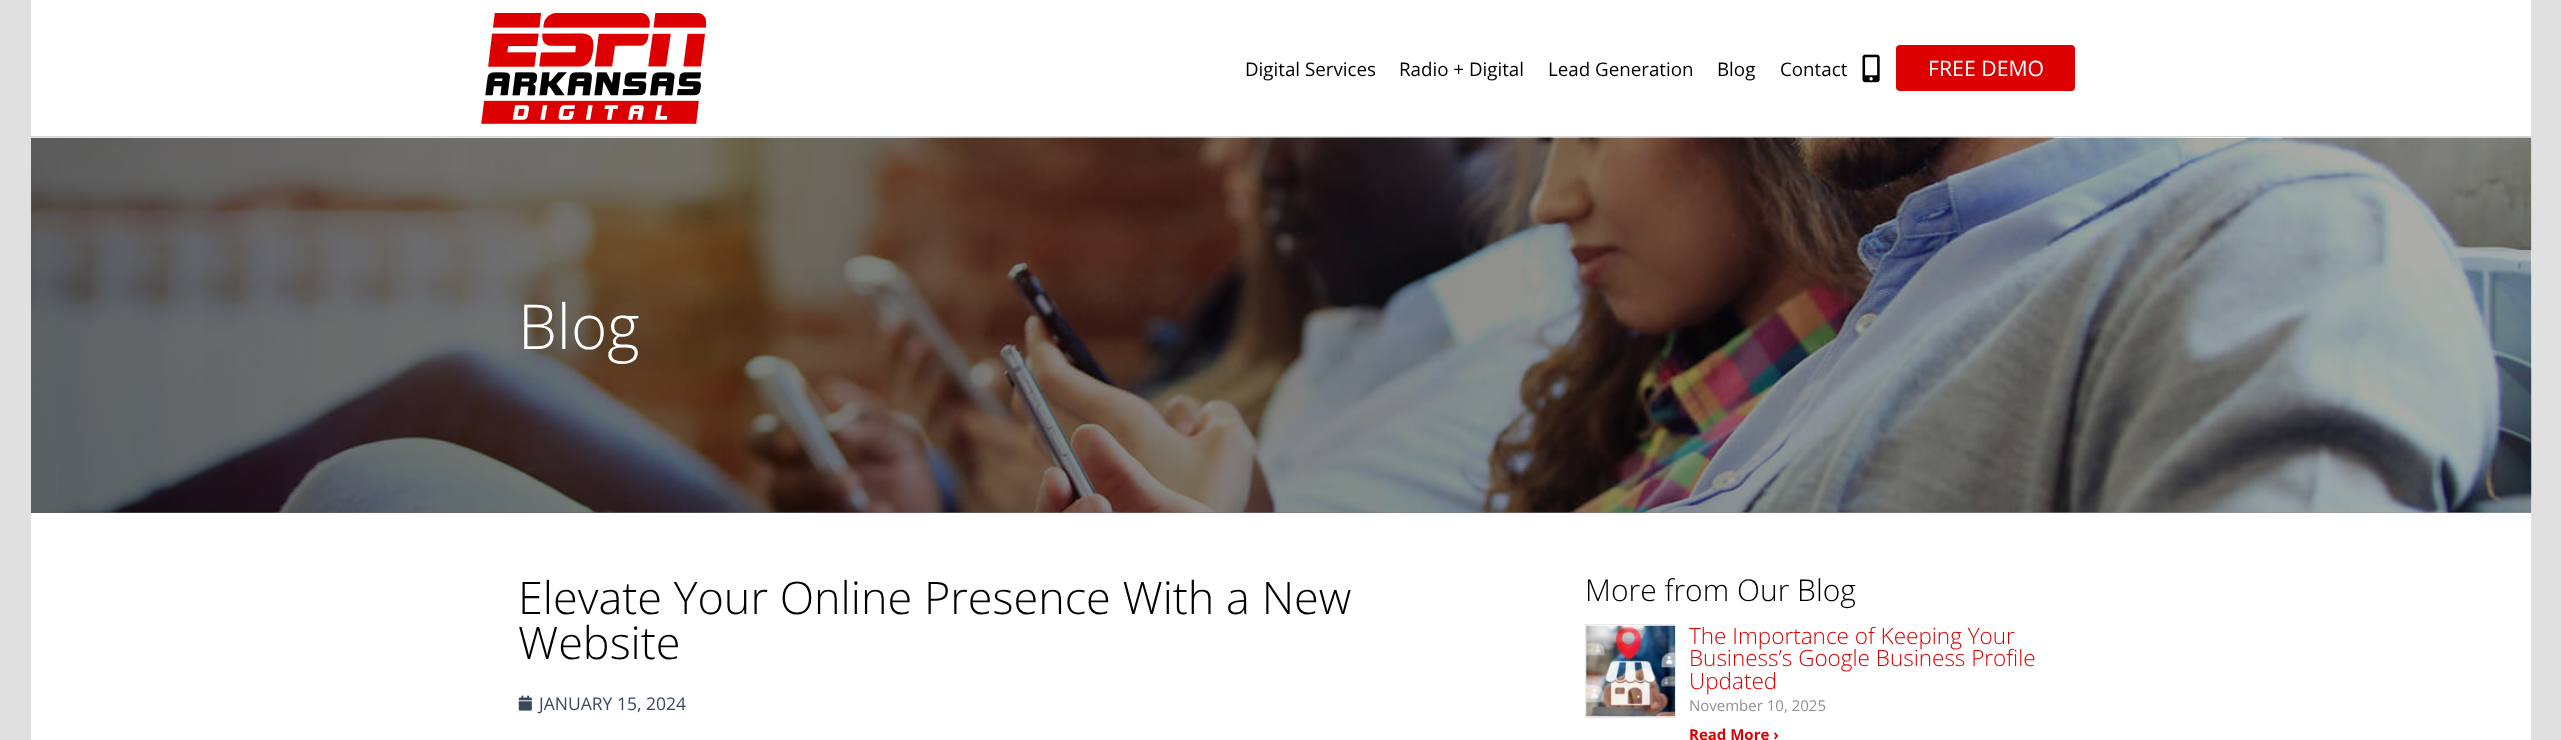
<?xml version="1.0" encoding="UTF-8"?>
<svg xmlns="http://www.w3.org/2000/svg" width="2561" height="740">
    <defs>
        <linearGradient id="g1" gradientUnits="userSpaceOnUse" x1="31" y1="325" x2="2531" y2="325"><stop offset="0" stop-color="#000000" stop-opacity="0.6"/><stop offset="1" stop-color="#000000" stop-opacity="0.31"/></linearGradient>
    </defs>
    <rect width="100%" height="100%" fill="#E0E0E0"/>
    <rect x="31" y="0" width="2500" height="136" fill="#FFFFFF"/>
    <rect x="31" y="136" width="2500" height="1" fill="#D6D6D6"/>
    <image x="481" y="13" width="225" height="111" href="img_01.png"/>
    <text x="1245" y="76" font-family="Open Sans" font-size="18.75" fill="#000000">Digital Services</text>
    <text x="1399" y="76" font-family="Open Sans" font-size="18.75" fill="#000000">Radio + Digital</text>
    <text x="1548" y="76" font-family="Open Sans" font-size="18.75" fill="#000000">Lead Generation</text>
    <text x="1717" y="76" font-family="Open Sans" font-size="18.75" fill="#000000">Blog</text>
    <text x="1780" y="76" font-family="Open Sans" font-size="18.75" fill="#000000">Contact</text>
    <image x="1862" y="54" width="18" height="29" href="img_02.png"/>
    <rect x="1896" y="45" width="179" height="46" rx="4" fill="#DD0000"/>
    <text x="1928" y="76" font-family="Open Sans" font-size="21.25" fill="#FFFFFF">FREE DEMO</text>
    <image x="31" y="137" width="2501" height="376" href="img_03.png"/>
    <rect x="31" y="138" width="2500" height="375" fill="url(#g1)"/>
    <text x="518" y="349" font-family="Open Sans" font-size="62" font-weight="300" fill="#FFFFFF">Blog</text>
    <rect x="31" y="513" width="2500" height="227" fill="#FFFFFF"/>
    <text font-family="Open Sans" font-size="45" font-weight="300" fill="#000000">
        <tspan x="518" y="614">Elevate Your Online Presence With a New</tspan>
        <tspan x="518" y="659">Website</tspan>
    </text>
    <image x="518" y="695" width="14" height="16" href="img_04.png"/>
    <text x="539" y="710" font-family="Open Sans" font-size="17.5" fill="#38495D">JANUARY 15, 2024</text>
    <text x="1585" y="601" font-family="Open Sans" font-size="30" font-weight="300" fill="#000000">More from Our Blog</text>
    <rect x="1585.5" y="624.5" width="90" height="93" fill="none" stroke="#E9E9E9"/>
    <image x="1586" y="625" width="89" height="92" href="img_05.png"/>
    <text font-family="Open Sans" font-size="22.5" font-weight="300" fill="#DD0000">
        <tspan x="1689" y="644">The Importance of Keeping Your</tspan>
        <tspan x="1689" y="666">Business’s Google Business Profile</tspan>
        <tspan x="1689" y="689">Updated</tspan>
    </text>
    <text x="1689" y="711" font-family="Open Sans" font-size="15" fill="#919191">November 10, 2025</text>
    <text x="1689" y="740" font-family="Open Sans" font-size="15" font-weight="700" fill="#DD0000">Read More ›</text>
</svg>
